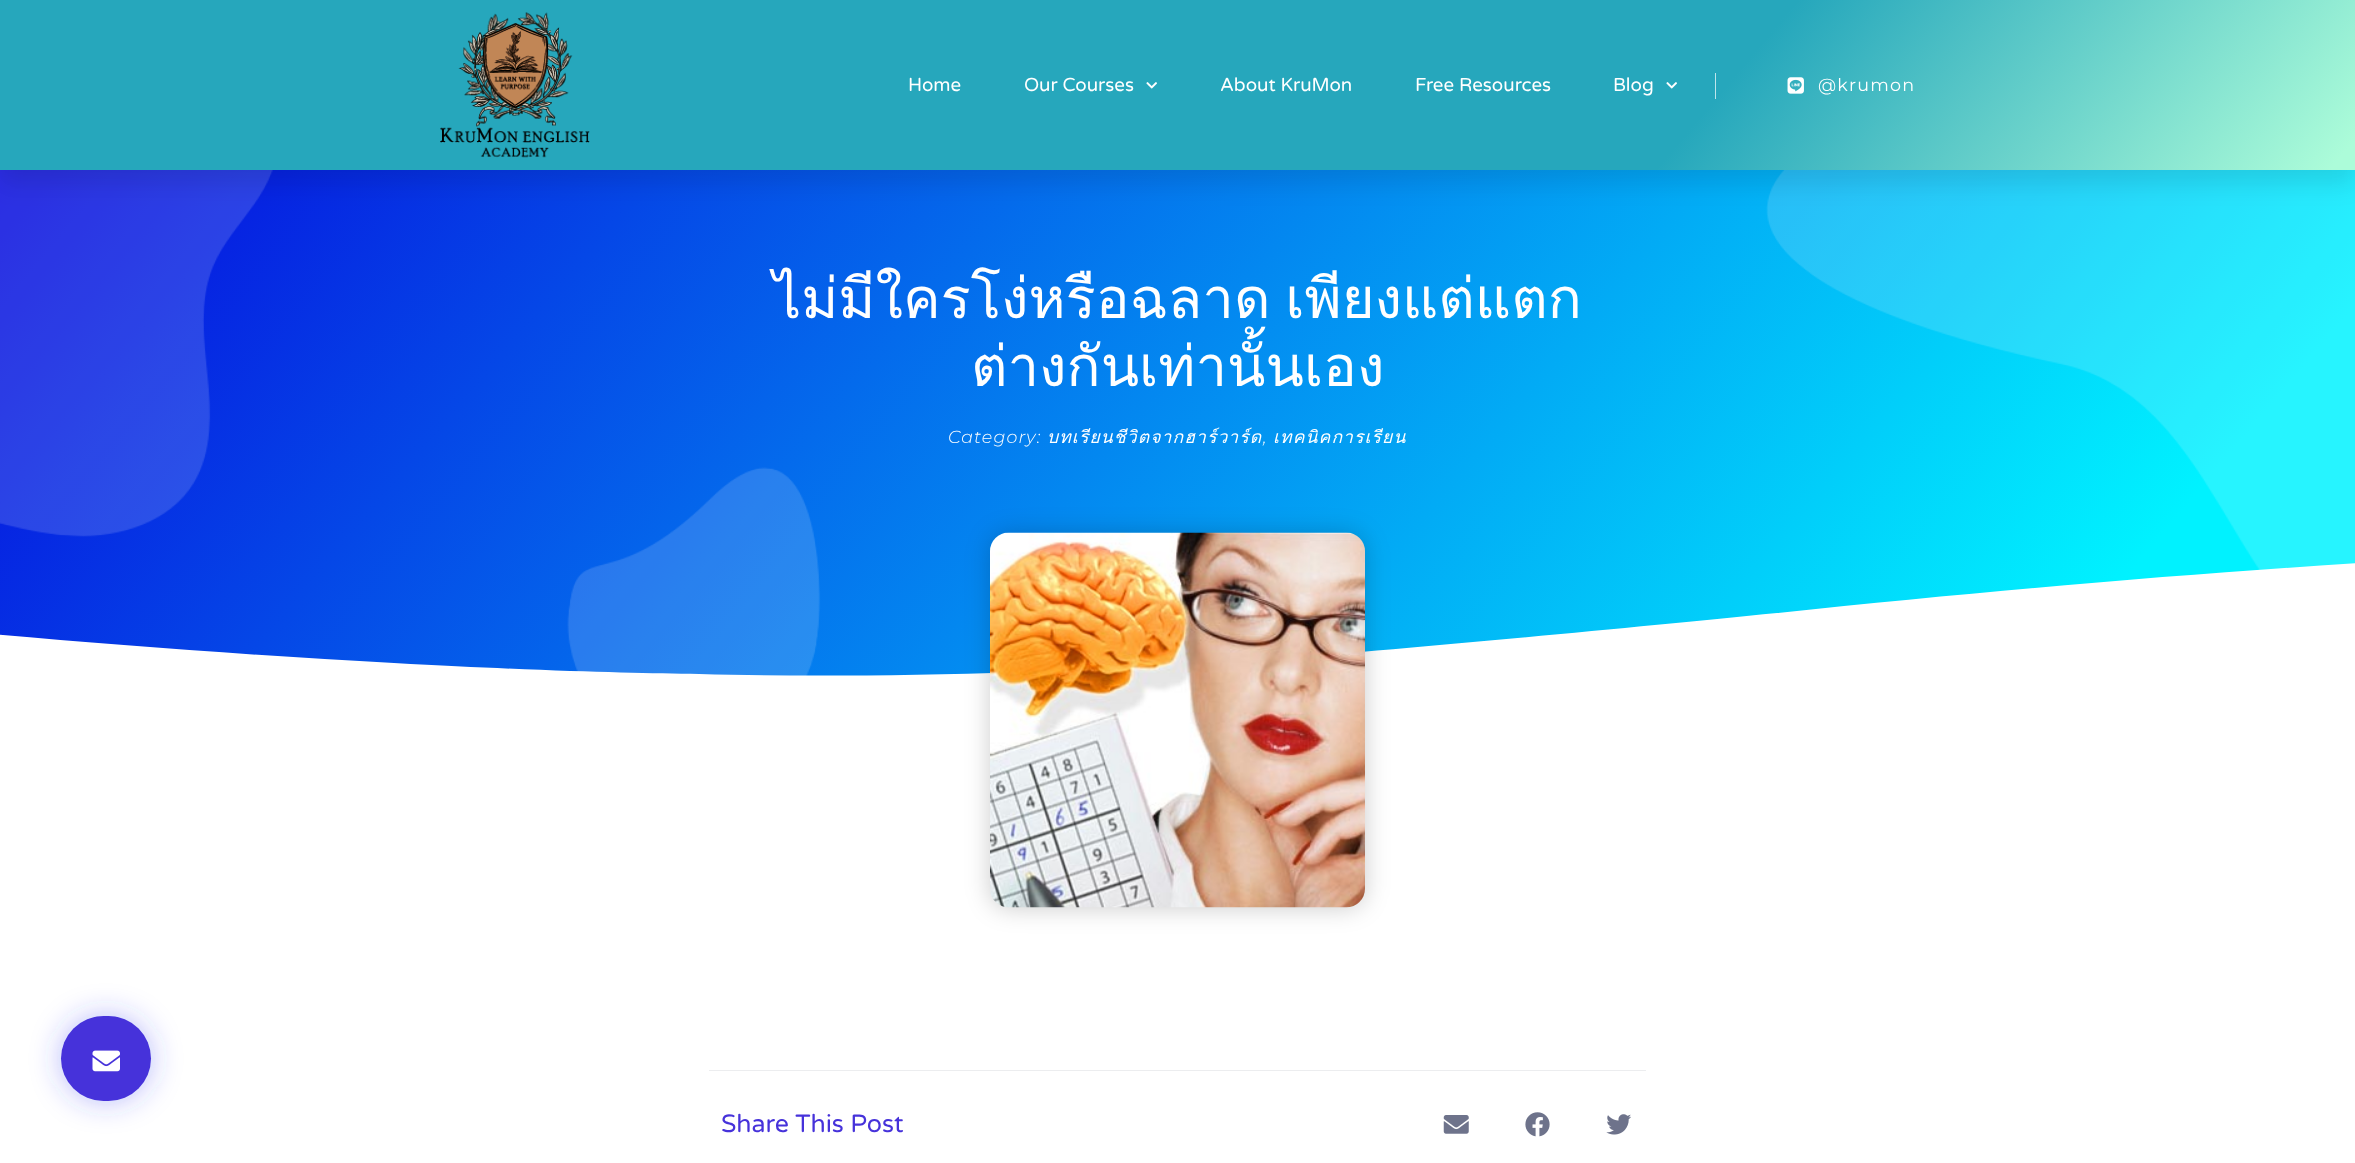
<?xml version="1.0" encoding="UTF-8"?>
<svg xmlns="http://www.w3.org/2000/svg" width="2355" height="1163">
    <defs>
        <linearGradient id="g1" gradientUnits="userSpaceOnUse" x1="333" y1="-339" x2="2022" y2="1079"><stop offset="0" stop-color="#0700DD"/><stop offset="0.89" stop-color="#00F2FF"/></linearGradient>
        <filter id="blur1" x="-50%" y="-200%" width="200%" height="500%"><feGaussianBlur stdDeviation="12.5"/></filter>
        <linearGradient id="g2" gradientUnits="userSpaceOnUse" x1="445" y1="-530" x2="1910" y2="700"><stop offset="0.72" stop-color="#26A7BC"/><stop offset="0.99" stop-color="#ACFCD9"/></linearGradient>
        <filter id="blur2" x="-50%" y="-200%" width="200%" height="500%"><feGaussianBlur stdDeviation="15.5"/></filter>
    </defs>
    <rect width="100%" height="100%" fill="#FFFFFF"/>
    <rect x="0" y="170" width="2355" height="506" fill="url(#g1)"/>
    <image x="0" y="170" width="2355" height="506" href="img_04.png"/>
    <rect x="0" y="13" width="2355" height="170" fill="#000000" fill-opacity="0.1" filter="url(#blur1)"/>
    <rect x="0" y="0" width="2355" height="170" fill="url(#g2)"/>
    <image x="440" y="12" width="150" height="146" href="img_01.png"/>
    <text x="908" y="91" font-family="Varela Round" font-size="18.75" fill="#FFFFFF">Home</text>
    <text x="1024" y="91" font-family="Varela Round" font-size="18.75" fill="#FFFFFF">Our Courses</text>
    <image x="1146" y="82" width="11" height="7" href="img_02.png"/>
    <text x="1220" y="91" font-family="Varela Round" font-size="18.75" fill="#FFFFFF">About KruMon</text>
    <text x="1415" y="91" font-family="Varela Round" font-size="18.75" fill="#FFFFFF">Free Resources</text>
    <text x="1613" y="91" font-family="Varela Round" font-size="18.75" fill="#FFFFFF">Blog</text>
    <image x="1666" y="82" width="11" height="7" href="img_02.png"/>
    <rect x="1715" y="73" width="1" height="26" fill="#BEE5EB"/>
    <image x="1787" y="77" width="17" height="17" href="img_03.png"/>
    <text x="1818" y="91" font-family="Montserrat" font-size="17.5" letter-spacing="1.25" fill="#FFFFFF">@krumon</text>
    <text x="773" y="318" word-spacing="-4" font-family="Loma" font-size="56.25" fill="#FFFFFF">ไม่มีใครโง่หรือฉลาด เพียงแต่แตก</text>
    <text x="971" y="386" font-family="Loma" font-size="56.25" fill="#FFFFFF">ต่างกันเท่านั้นเอง</text>
    <text x="948" y="443" font-family="Montserrat" font-size="17.5" font-weight="300" font-style="italic" letter-spacing="1.1" fill="#FFFFFF">Category:</text>
    <text x="1047" y="443" font-family="Loma" font-size="17.5" font-style="italic" letter-spacing="1.1" fill="#FFFFFF">บทเรียนชีวิตจากฮาร์วาร์ด</text>
    <text x="1273" y="443" font-family="Loma" font-size="17.5" font-style="italic" letter-spacing="1.1" fill="#FFFFFF">เทคนิคการเรียน</text>
    <text x="1263" y="443" font-family="Montserrat" font-size="17.5" font-weight="300" font-style="italic" letter-spacing="1.1" fill="#FFFFFF">,</text>
    <rect x="61" y="1016" width="90" height="85" rx="42.5" fill="#3538F0" fill-opacity="0.35" filter="url(#blur2)"/>
    <rect x="61" y="1016" width="90" height="85" rx="42.5" fill="#4632DA"/>
    <image x="92" y="1050" width="28" height="22" href="img_05.png"/>
    <path d="M 699 674 C 838 678 1015 674 1162 666 C 1306 659 1596 631 1777 613 C 2241 564 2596 546 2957 538 C 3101 535 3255 533 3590 542 C 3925 551 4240 580 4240 580 V 684 H -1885 V 639 C -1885 639 -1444 590 -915 593 C -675 594 -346 603 -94 626 C 36 639 226 654 394 663 C 561 672 636 673 699 674 Z" fill="#FFFFFF"/>
    <rect x="990" y="533" width="375" height="375" rx="19" fill="#000000" fill-opacity="0.2" filter="url(#blur1)"/>
    <image x="990" y="532" width="375" height="376" href="img_06.png"/>
    <rect x="709" y="1070" width="937" height="1" fill="#ECEDEF"/>
    <text x="721" y="1132" font-family="Varela Round" font-size="25" fill="#4632DA">Share This Post</text>
    <image x="1443" y="1115" width="26" height="19" href="img_07.png"/>
    <image x="1525" y="1112" width="25" height="25" href="img_08.png"/>
    <image x="1606" y="1114" width="25" height="21" href="img_09.png"/>
</svg>
